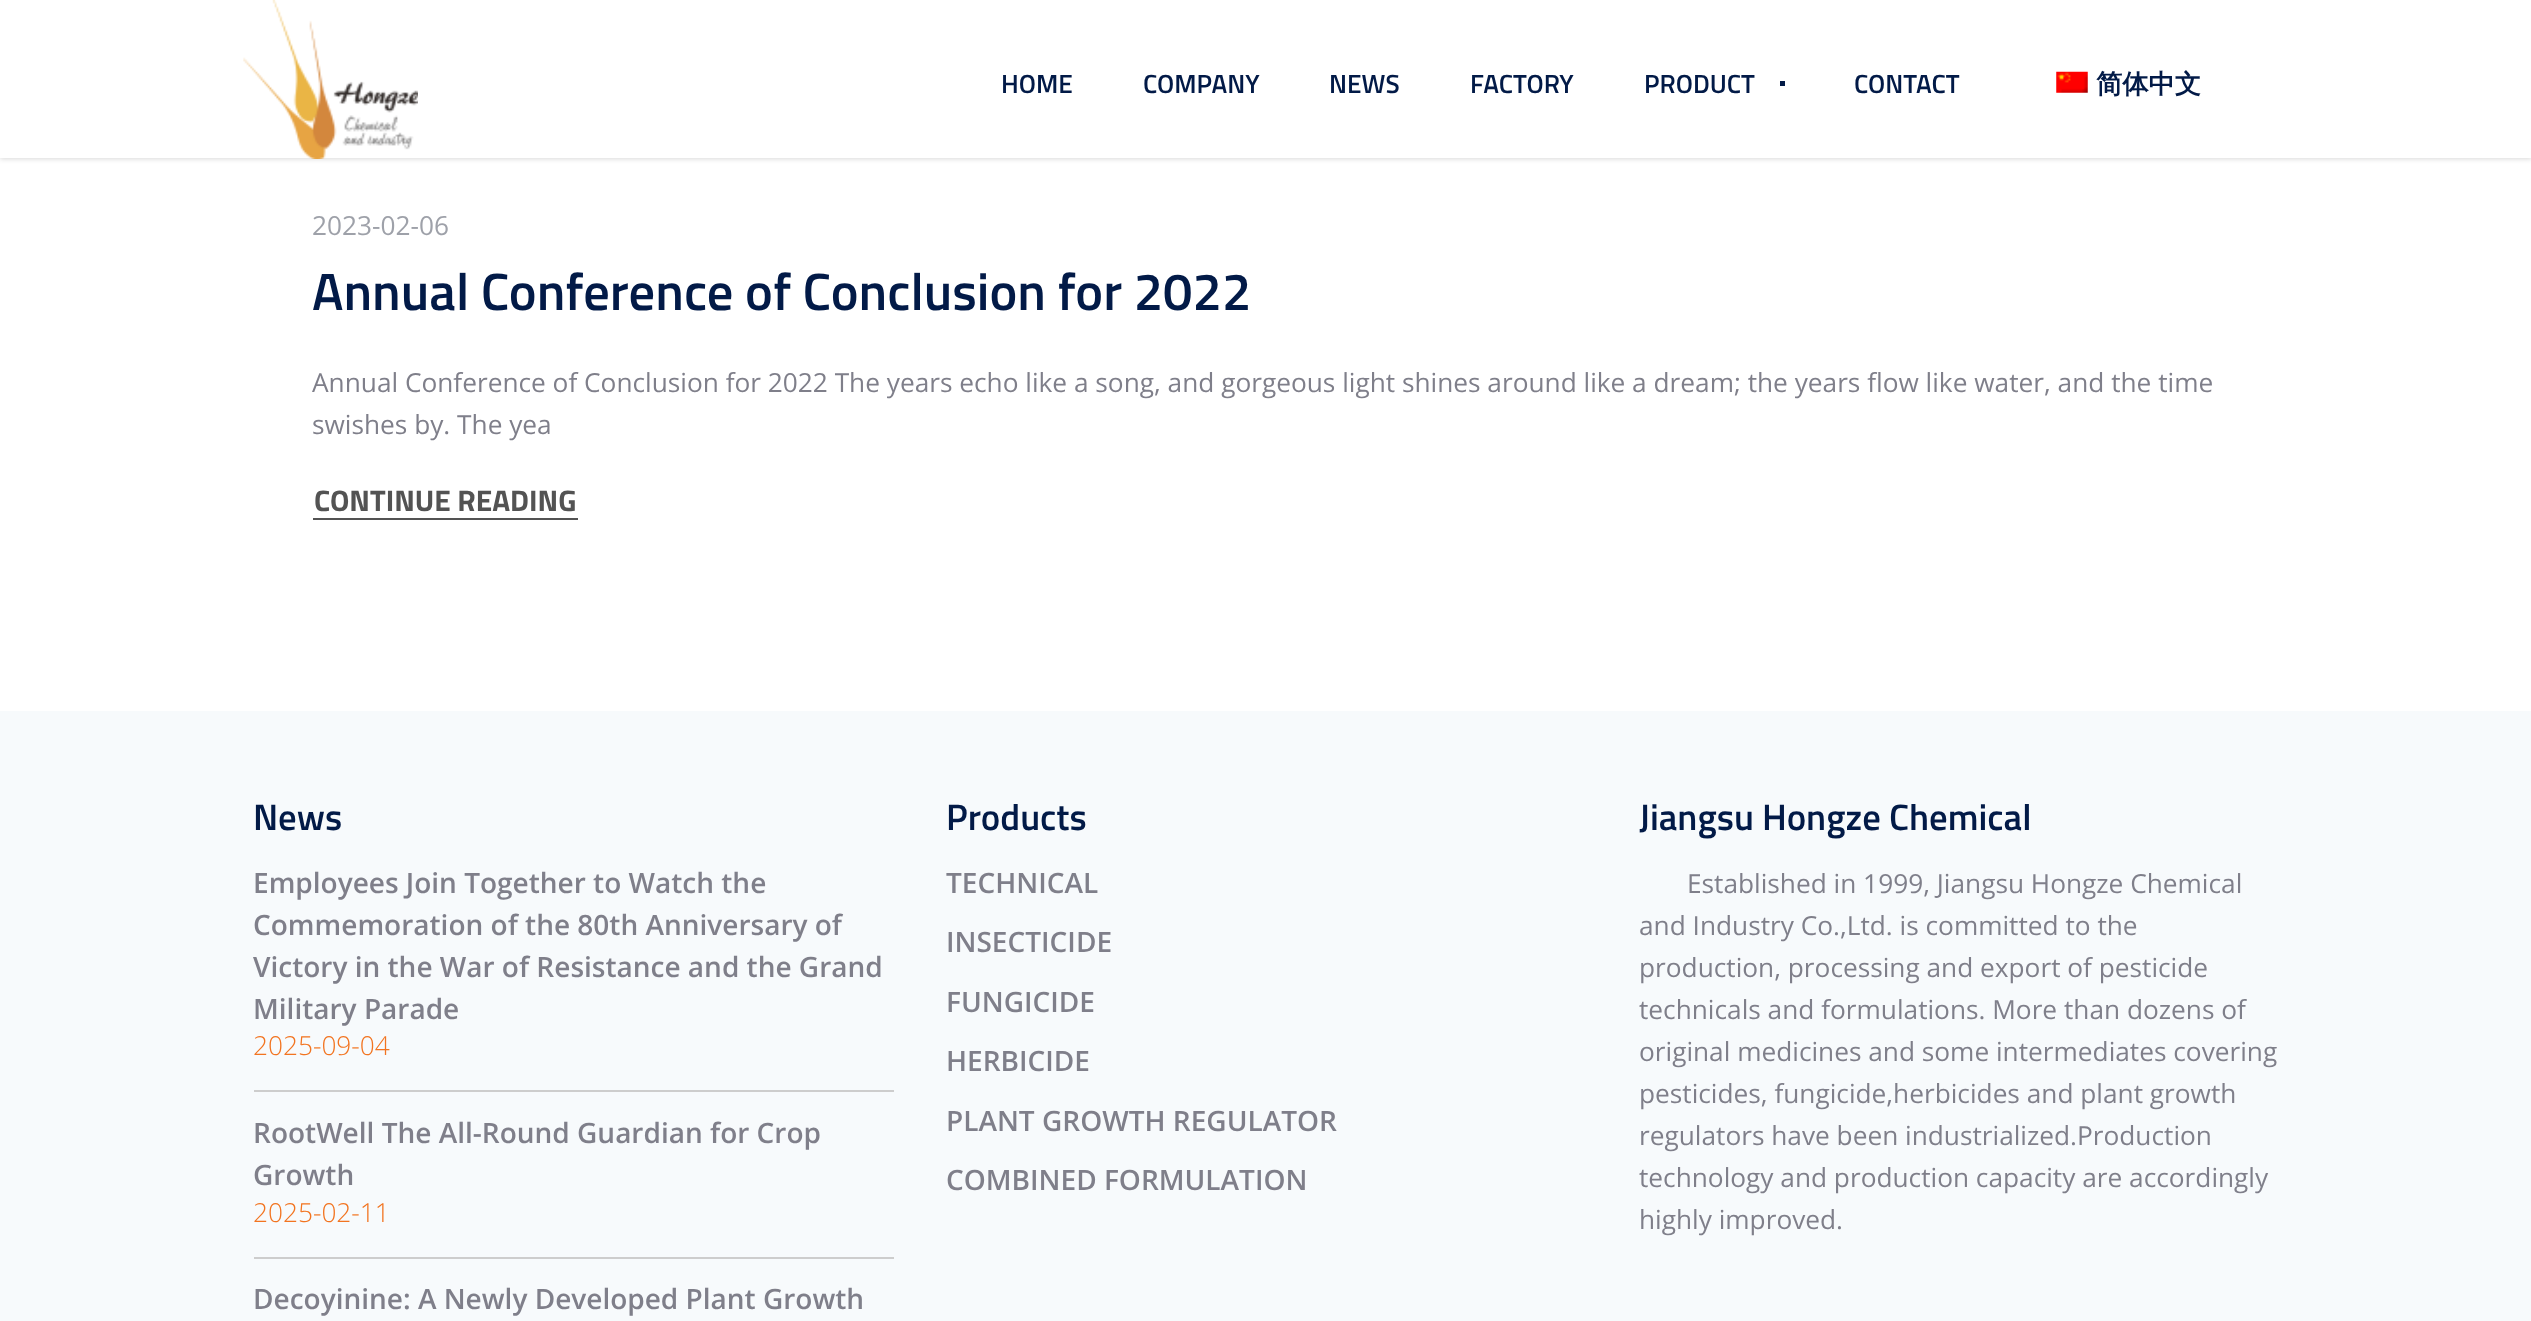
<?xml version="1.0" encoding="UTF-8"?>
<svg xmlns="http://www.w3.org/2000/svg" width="2531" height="1321">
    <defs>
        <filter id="blur1" x="-50%" y="-200%" width="200%" height="500%"><feGaussianBlur stdDeviation="2.5"/></filter>
    </defs>
    <rect width="100%" height="100%" fill="#FFFFFF"/>
    <rect x="0" y="2" width="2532" height="157" fill="#000000" fill-opacity="0.15" filter="url(#blur1)"/>
    <rect x="0" y="0" width="2531" height="158" fill="#FFFFFF"/>
    <image x="243" y="0" width="175" height="159" href="img_01.png"/>
    <text x="1001" y="93" font-family="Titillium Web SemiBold" font-size="26.25" font-weight="600" fill="#021A47">HOME</text>
    <text x="1143" y="93" font-family="Titillium Web SemiBold" font-size="26.25" font-weight="600" fill="#021A47">COMPANY</text>
    <text x="1329" y="93" font-family="Titillium Web SemiBold" font-size="26.25" font-weight="600" fill="#021A47">NEWS</text>
    <text x="1470" y="93" font-family="Titillium Web SemiBold" font-size="26.25" font-weight="600" fill="#021A47">FACTORY</text>
    <text x="1644" y="93" font-family="Titillium Web SemiBold" font-size="26.25" font-weight="600" fill="#021A47">PRODUCT</text>
    <rect x="1780" y="81" width="5" height="5" fill="#021A47"/>
    <text x="1854" y="93" font-family="Titillium Web SemiBold" font-size="26.25" font-weight="600" fill="#021A47">CONTACT</text>
    <image x="2056" y="71" width="32" height="22" href="img_02.png"/>
    <text x="2096" y="93" font-family="WenQuanYi Zen Hei" font-size="26.25" font-weight="700" fill="#021A47">简体中文</text>
    <text x="312" y="235" font-family="Open Sans" font-size="26.25" fill="#9EA1A9">2023-02-06</text>
    <text x="312" y="310" font-family="Titillium Web SemiBold" font-size="52.5" font-weight="600" fill="#021A47">Annual Conference of Conclusion for 2022</text>
    <text font-family="Open Sans" font-size="26.25" fill="#7F7F8A">
        <tspan x="312" y="392">Annual Conference of Conclusion for 2022 The years echo like a song, and gorgeous light shines around like a dream; the years flow like water, and the time</tspan>
        <tspan x="312" y="434">swishes by. The yea</tspan>
    </text>
    <text x="314" y="511" font-family="Titillium Web" font-size="29.75" font-weight="700" fill="#535353">CONTINUE READING</text>
    <rect x="313" y="518" width="265" height="2" fill="#535353"/>
    <rect x="0" y="711" width="2531" height="610" fill="#F7FAFC"/>
    <text x="253" y="830" font-family="Titillium Web SemiBold" font-size="36.75" font-weight="600" fill="#021A47">News</text>
    <text font-family="Open Sans" font-size="28" font-weight="600" fill="#7F7F8A">
        <tspan x="253" y="893">Employees Join Together to Watch the</tspan>
        <tspan x="253" y="935">Commemoration of the 80th Anniversary of</tspan>
        <tspan x="253" y="977">Victory in the War of Resistance and the Grand</tspan>
        <tspan x="253" y="1019">Military Parade</tspan>
    </text>
    <text x="253" y="1055" font-family="Open Sans" font-size="26.25" font-weight="300" fill="#F27420">2025-09-04</text>
    <rect x="254" y="1090" width="640" height="2" fill="#CDCDCD"/>
    <text font-family="Open Sans" font-size="28" font-weight="600" fill="#7F7F8A">
        <tspan x="253" y="1143">RootWell The All-Round Guardian for Crop</tspan>
        <tspan x="253" y="1185">Growth</tspan>
    </text>
    <text x="253" y="1222" font-family="Open Sans" font-size="26.25" font-weight="300" fill="#F27420">2025-02-11</text>
    <rect x="254" y="1257" width="640" height="2" fill="#CDCDCD"/>
    <text x="253" y="1309" font-family="Open Sans" font-size="28" font-weight="600" fill="#7F7F8A">Decoyinine: A Newly Developed Plant Growth</text>
    <text x="946" y="830" font-family="Titillium Web SemiBold" font-size="36.75" font-weight="600" fill="#021A47">Products</text>
    <text x="946" y="893" font-family="Open Sans" font-size="28" font-weight="600" fill="#7F7F8A">TECHNICAL</text>
    <text x="946" y="952" font-family="Open Sans" font-size="28" font-weight="600" fill="#7F7F8A">INSECTICIDE</text>
    <text x="946" y="1012" font-family="Open Sans" font-size="28" font-weight="600" fill="#7F7F8A">FUNGICIDE</text>
    <text x="946" y="1071" font-family="Open Sans" font-size="28" font-weight="600" fill="#7F7F8A">HERBICIDE</text>
    <text x="946" y="1131" font-family="Open Sans" font-size="28" font-weight="600" fill="#7F7F8A">PLANT GROWTH REGULATOR</text>
    <text x="946" y="1190" font-family="Open Sans" font-size="28" font-weight="600" fill="#7F7F8A">COMBINED FORMULATION</text>
    <text x="1639" y="830" font-family="Titillium Web SemiBold" font-size="36.75" font-weight="600" fill="#021A47">Jiangsu Hongze Chemical</text>
    <text x="1687" y="893" font-family="Open Sans" font-size="26.25" fill="#7F7F8A">Established in 1999, Jiangsu Hongze Chemical</text>
    <text font-family="Open Sans" font-size="26.25" fill="#7F7F8A">
        <tspan x="1639" y="935">and Industry Co.,Ltd. is committed to the</tspan>
        <tspan x="1639" y="977">production, processing and export of pesticide</tspan>
        <tspan x="1639" y="1019">technicals and formulations. More than dozens of</tspan>
        <tspan x="1639" y="1061">original medicines and some intermediates covering</tspan>
        <tspan x="1639" y="1103">pesticides, fungicide,herbicides and plant growth</tspan>
        <tspan x="1639" y="1145">regulators have been industrialized.Production</tspan>
        <tspan x="1639" y="1187">technology and production capacity are accordingly</tspan>
        <tspan x="1639" y="1229">highly improved.</tspan>
    </text>
</svg>
